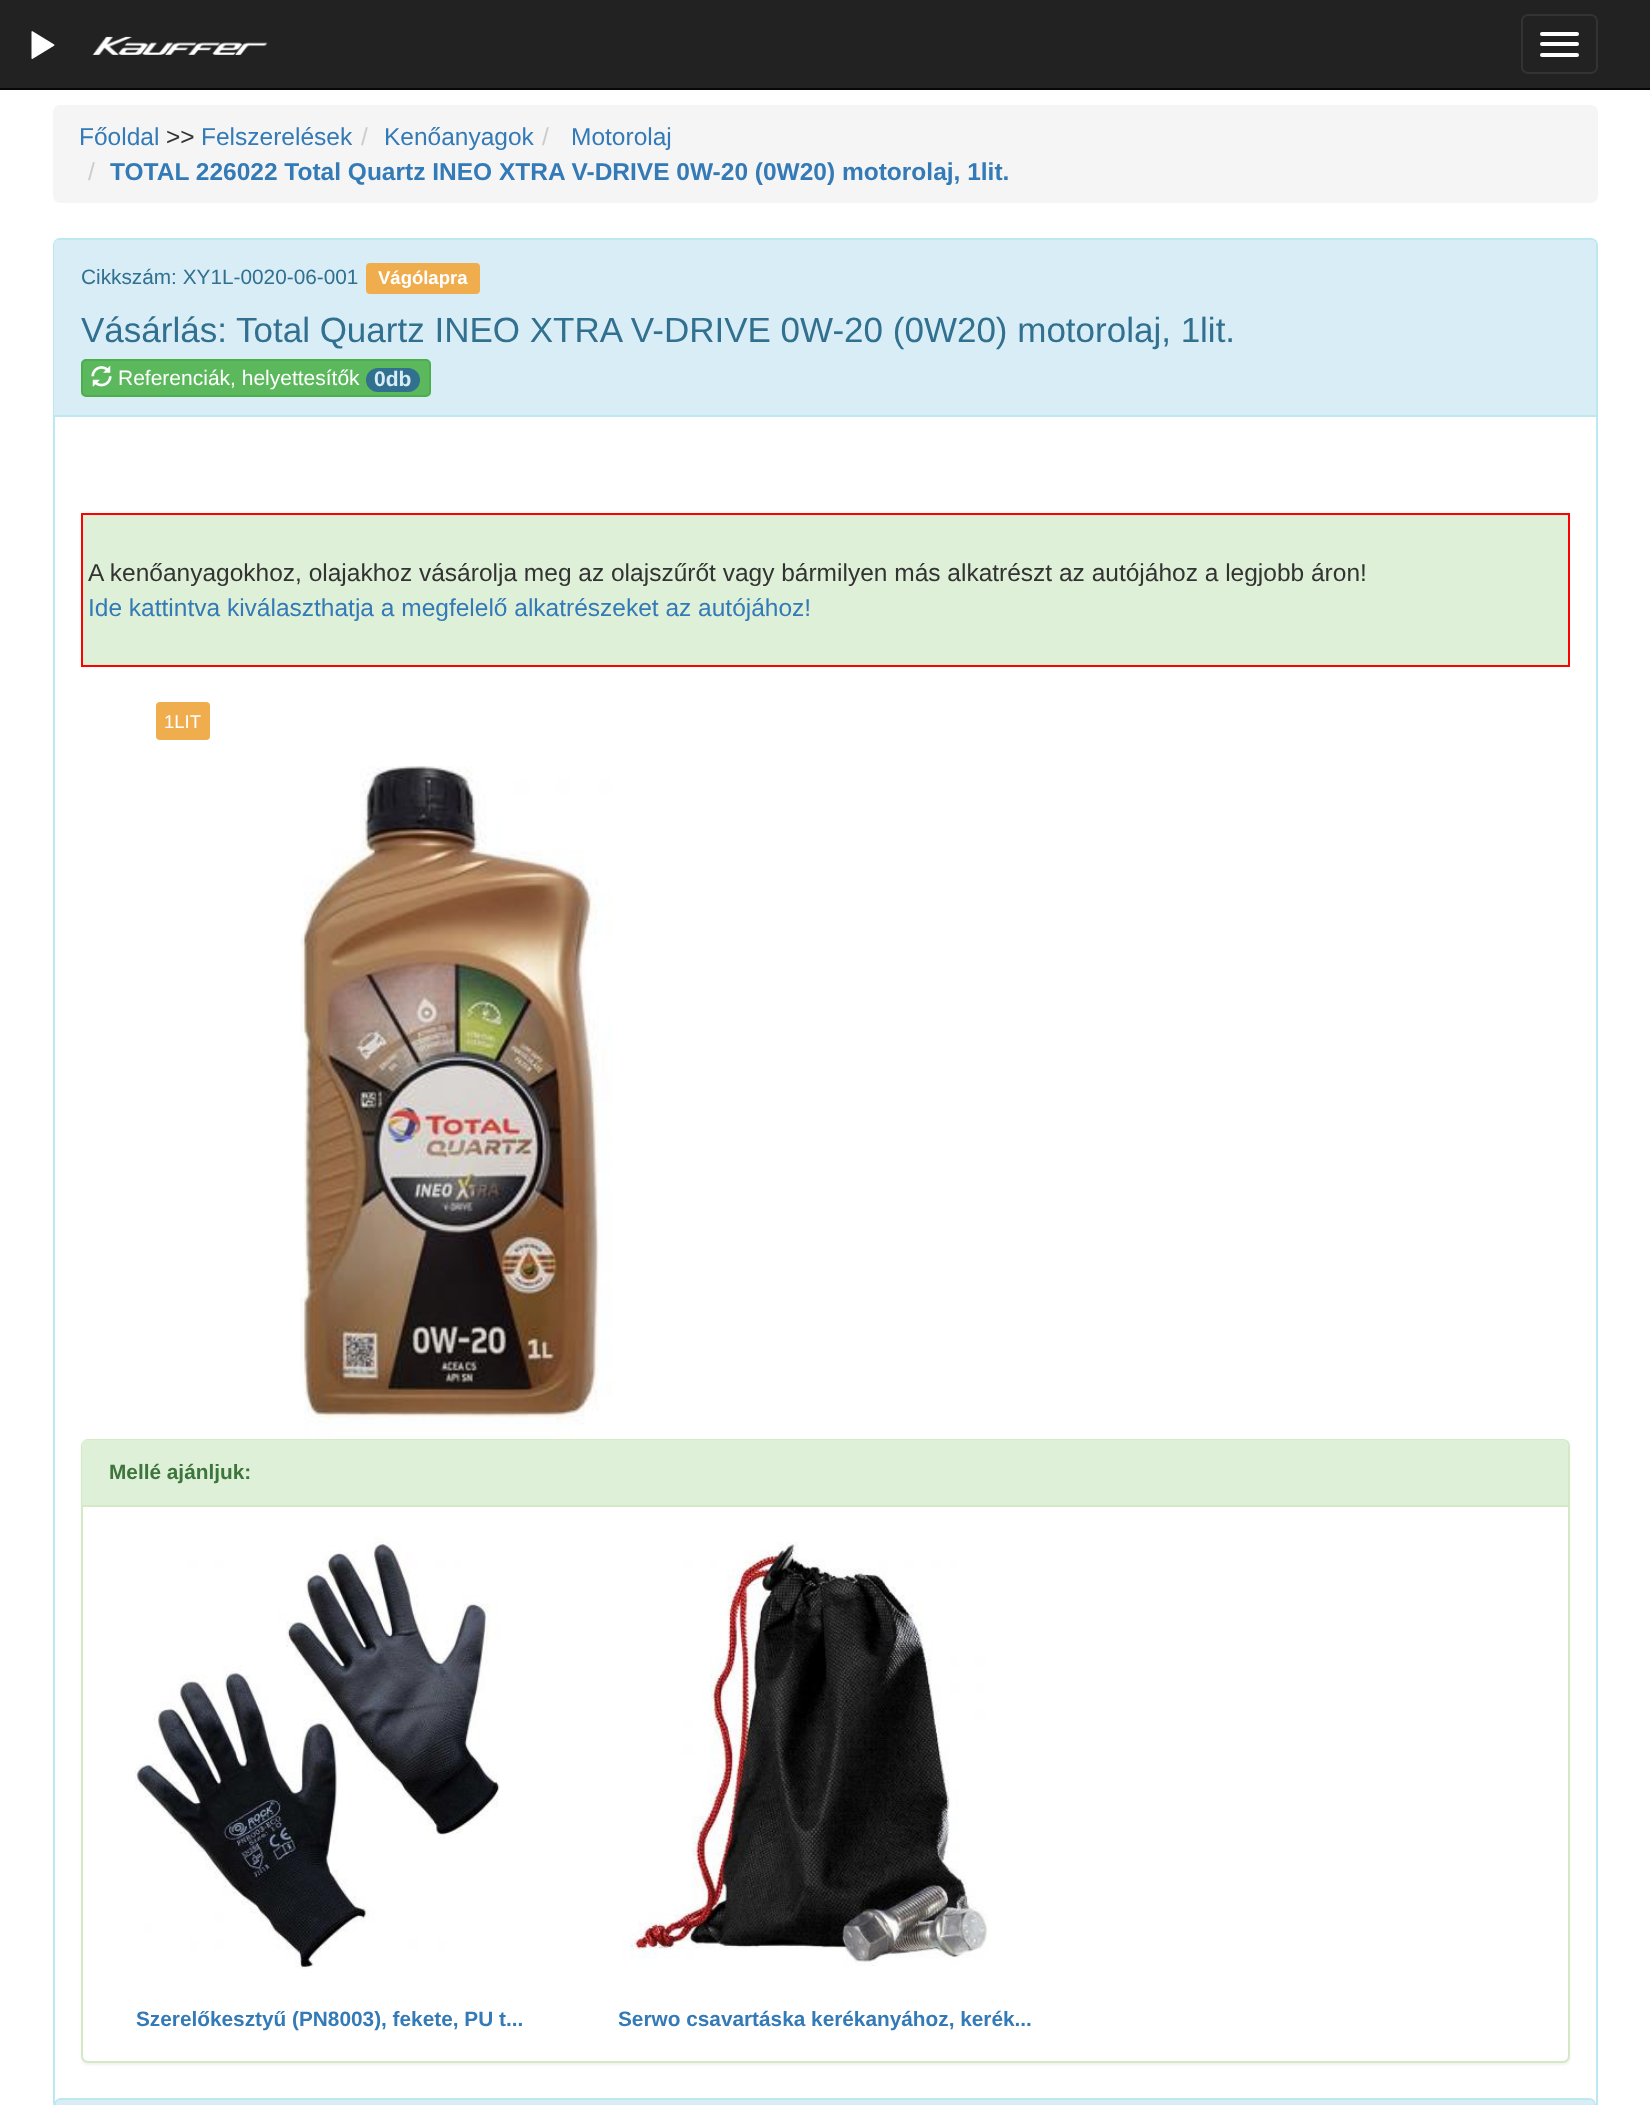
<?xml version="1.0" encoding="UTF-8"?>
<svg xmlns="http://www.w3.org/2000/svg" width="1650" height="2105">
    <defs>
        <filter id="blur1" x="-50%" y="-200%" width="200%" height="500%"><feGaussianBlur stdDeviation="1"/></filter>
    </defs>
    <rect width="100%" height="100%" fill="#FFFFFF"/>
    <rect x="0" y="0" width="1650" height="88" fill="#222222"/>
    <rect x="0" y="88" width="1650" height="2" fill="#080808"/>
    <image x="31" y="31" width="24" height="28" href="img_01.png"/>
    <image x="92" y="36" width="176" height="19" href="img_02.png"/>
    <rect x="1522" y="15" width="75" height="58" rx="6" fill="none" stroke="#333333" stroke-width="2"/>
    <rect x="1540" y="32" width="39" height="4" rx="2" fill="#FFFFFF"/>
    <rect x="1540" y="42" width="39" height="4" rx="2" fill="#FFFFFF"/>
    <rect x="1540" y="53" width="39" height="4" rx="2" fill="#FFFFFF"/>
    <rect x="53" y="105" width="1545" height="98" rx="7" fill="#F5F5F5"/>
    <text x="79" y="145" font-family="Liberation Sans" font-size="24.5" fill="#337AB7">Főoldal</text>
    <text x="166" y="145" font-family="Liberation Sans" font-size="24.5" fill="#333333">&gt;&gt;</text>
    <text x="201" y="145" font-family="Liberation Sans" font-size="24.5" fill="#337AB7">Felszerelések</text>
    <text x="361" y="145" font-family="Liberation Sans" font-size="24.5" fill="#CCCCCC">/</text>
    <text x="384" y="145" font-family="Liberation Sans" font-size="24.5" fill="#337AB7">Kenőanyagok</text>
    <text x="542" y="145" font-family="Liberation Sans" font-size="24.5" fill="#CCCCCC">/</text>
    <text x="571" y="145" font-family="Liberation Sans" font-size="24.5" fill="#337AB7">Motorolaj</text>
    <text x="88" y="180" font-family="Liberation Sans" font-size="24.5" fill="#CCCCCC">/</text>
    <text x="110" y="180" font-family="Liberation Sans" font-size="24.5" font-weight="700" fill="#337AB7">TOTAL 226022 Total Quartz INEO XTRA V-DRIVE 0W-20 (0W20) motorolaj, 1lit.</text>
    <rect x="54" y="239" width="1543" height="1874" rx="6" fill="none" stroke="#BCE8F1" stroke-width="2"/>
    <path d="M 59 240 H 1591 C 1594 240 1596 242 1596 245 V 417 H 54 V 245 C 54 242 56 240 59 240 Z" fill="#D9EDF7"/>
    <rect x="54" y="415" width="1542" height="2" fill="#BCE8F1"/>
    <text x="81" y="284" font-family="Liberation Sans" font-size="20.8" fill="#31708F">Cikkszám: XY1L-0020-06-001</text>
    <rect x="366" y="263" width="114" height="31" rx="4" fill="#F0AD4E"/>
    <text x="378" y="284" font-family="Liberation Sans" font-size="18.5" font-weight="700" fill="#FFFFFF">Vágólapra</text>
    <text x="81" y="342" font-family="Liberation Sans" font-size="35" fill="#31708F">Vásárlás: Total Quartz INEO XTRA V-DRIVE 0W-20 (0W20) motorolaj, 1lit.</text>
    <rect x="82" y="360" width="348" height="36" rx="4" fill="#5CB85C" stroke="#4CAE4C" stroke-width="2"/>
    <image x="91" y="365" width="21" height="22" href="img_03.png"/>
    <text x="118" y="385" font-family="Liberation Sans" font-size="21" fill="#FFFFFF">Referenciák, helyettesítők</text>
    <rect x="366" y="368" width="54" height="24" rx="12" fill="#31708F"/>
    <text x="374" y="386" font-family="Liberation Sans" font-size="21" font-weight="700" fill="#D9EDF7">0db</text>
    <rect x="82" y="514" width="1487" height="152" fill="#DFF0D8" stroke="#FF0000" stroke-width="2"/>
    <text x="88" y="581" font-family="Liberation Sans" font-size="24.5" fill="#333333">A kenőanyagokhoz, olajakhoz vásárolja meg az olajszűrőt vagy bármilyen más alkatrészt az autójához a legjobb áron!</text>
    <text x="88" y="616" font-family="Liberation Sans" font-size="24.5" fill="#337AB7">Ide kattintva kiválaszthatja a megfelelő alkatrészeket az autójához!</text>
    <rect x="156" y="702" width="54" height="38" rx="4" fill="#F0AD4E"/>
    <text x="164" y="728" font-family="Liberation Sans" font-size="18.5" fill="#FFFFFF">1LIT</text>
    <image x="300" y="766" width="312" height="672" href="img_04.png"/>
    <rect x="81" y="1440" width="1489" height="625" rx="7" fill="#000000" fill-opacity="0.05" filter="url(#blur1)"/>
    <rect x="82" y="1440" width="1487" height="622" rx="6" fill="#FFFFFF" stroke="#D6E9C6" stroke-width="2"/>
    <path d="M 87 1440 H 1563 C 1566 1440 1568 1442 1568 1445 V 1507 H 82 V 1445 C 82 1442 84 1440 87 1440 Z" fill="#DFF0D8"/>
    <rect x="82" y="1505" width="1486" height="2" fill="#D6E9C6"/>
    <text x="109" y="1479" font-family="Liberation Sans" font-size="20.8" font-weight="700" fill="#3C763D">Mellé ajánljuk:</text>
    <image x="135" y="1536" width="365" height="433" href="img_05.png"/>
    <text x="136" y="2026" font-family="Liberation Sans" font-size="20.8" font-weight="700" fill="#337AB7">Szerelőkesztyű (PN8003), fekete, PU t...</text>
    <image x="622" y="1542" width="367" height="424" href="img_06.png"/>
    <text x="618" y="2026" font-family="Liberation Sans" font-size="20.8" font-weight="700" fill="#337AB7">Serwo csavartáska kerékanyához, kerék...</text>
    <rect x="55" y="2099" width="1540" height="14" rx="6" fill="none" stroke="#BCE8F1" stroke-width="2"/>
    <path d="M 61 2100 H 1589 C 1592 2100 1594 2102 1594 2105 V 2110 H 56 V 2105 C 56 2102 58 2100 61 2100 Z" fill="#D9EDF7"/>
</svg>
